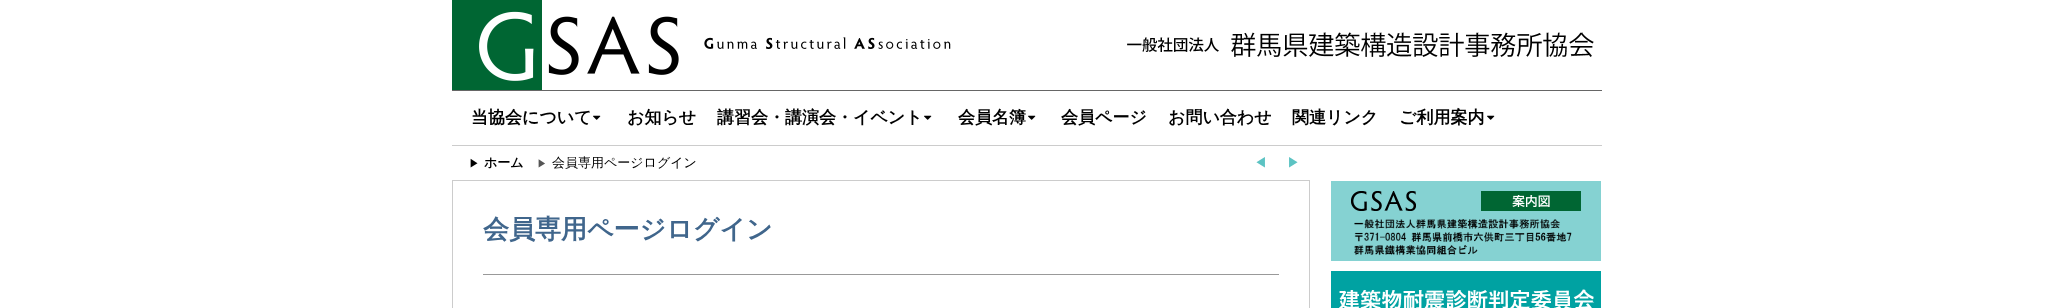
<?xml version="1.0" encoding="UTF-8"?>
<svg xmlns="http://www.w3.org/2000/svg" width="2054" height="308">
    <rect width="100%" height="100%" fill="#FFFFFF"/>
    <rect x="452" y="90" width="1150" height="1" fill="#666666"/>
    <image x="452" y="0" width="499" height="90" href="img_01.png"/>
    <image x="1127" y="32" width="467" height="25" href="img_02.png"/>
    <rect x="452" y="145" width="1150" height="1" fill="#CCCCCC"/>
    <text x="471" y="123" font-family="WenQuanYi Zen Hei" font-size="17" font-weight="700" fill="#000000">当協会について</text>
    <image x="593" y="115" width="8" height="5" href="img_03.png"/>
    <text x="627" y="123" font-family="WenQuanYi Zen Hei" font-size="17" font-weight="700" fill="#000000">お知らせ</text>
    <text x="717" y="123" font-family="WenQuanYi Zen Hei" font-size="17" font-weight="700" fill="#000000">講習会・講演会・イベント</text>
    <image x="924" y="115" width="8" height="5" href="img_03.png"/>
    <text x="958" y="123" font-family="WenQuanYi Zen Hei" font-size="17" font-weight="700" fill="#000000">会員名簿</text>
    <image x="1028" y="115" width="8" height="5" href="img_03.png"/>
    <text x="1061" y="123" font-family="WenQuanYi Zen Hei" font-size="17" font-weight="700" fill="#000000">会員ページ</text>
    <text x="1168" y="123" font-family="WenQuanYi Zen Hei" font-size="17" font-weight="700" fill="#000000">お問い合わせ</text>
    <text x="1292" y="123" font-family="WenQuanYi Zen Hei" font-size="17" font-weight="700" fill="#000000">関連リンク</text>
    <text x="1399" y="123" font-family="WenQuanYi Zen Hei" font-size="17" font-weight="700" fill="#000000">ご利用案内</text>
    <image x="1487" y="115" width="8" height="5" href="img_03.png"/>
    <text x="469" y="167" font-family="WenQuanYi Zen Hei" font-size="10" font-weight="700" fill="#000000">▶</text>
    <text x="484" y="167" font-family="WenQuanYi Zen Hei" font-size="13" font-weight="700" fill="#000000">ホーム</text>
    <text x="537" y="167" font-family="WenQuanYi Zen Hei" font-size="10" font-weight="500" fill="#555555">▶</text>
    <text x="552" y="167" font-family="WenQuanYi Zen Hei" font-size="13" font-weight="500" fill="#000000">会員専用ページログイン</text>
    <text x="1254" y="167" font-family="WenQuanYi Zen Hei" font-size="13" font-weight="500" fill="#5CC3C3">◀︎</text>
    <text x="1287" y="167" font-family="WenQuanYi Zen Hei" font-size="13" font-weight="500" fill="#5CC3C3">▶︎</text>
    <rect x="452.5" y="180.5" width="857" height="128" fill="none" stroke="#CCCCCC"/>
    <text x="483" y="238" font-family="WenQuanYi Zen Hei" font-size="26" font-weight="700" fill="#40668C">会員専用ページログイン</text>
    <rect x="483" y="274" width="796" height="1" fill="#999999"/>
    <rect x="1331" y="181" width="270" height="80" fill="#85D2D2"/>
    <image x="1351" y="191" width="65" height="20" href="img_04.png"/>
    <image x="1481" y="191" width="100" height="20" href="img_05.png"/>
    <image x="1354" y="219" width="218" height="37" href="img_06.png"/>
    <image x="1331" y="271" width="270" height="37" href="img_07.png"/>
</svg>
